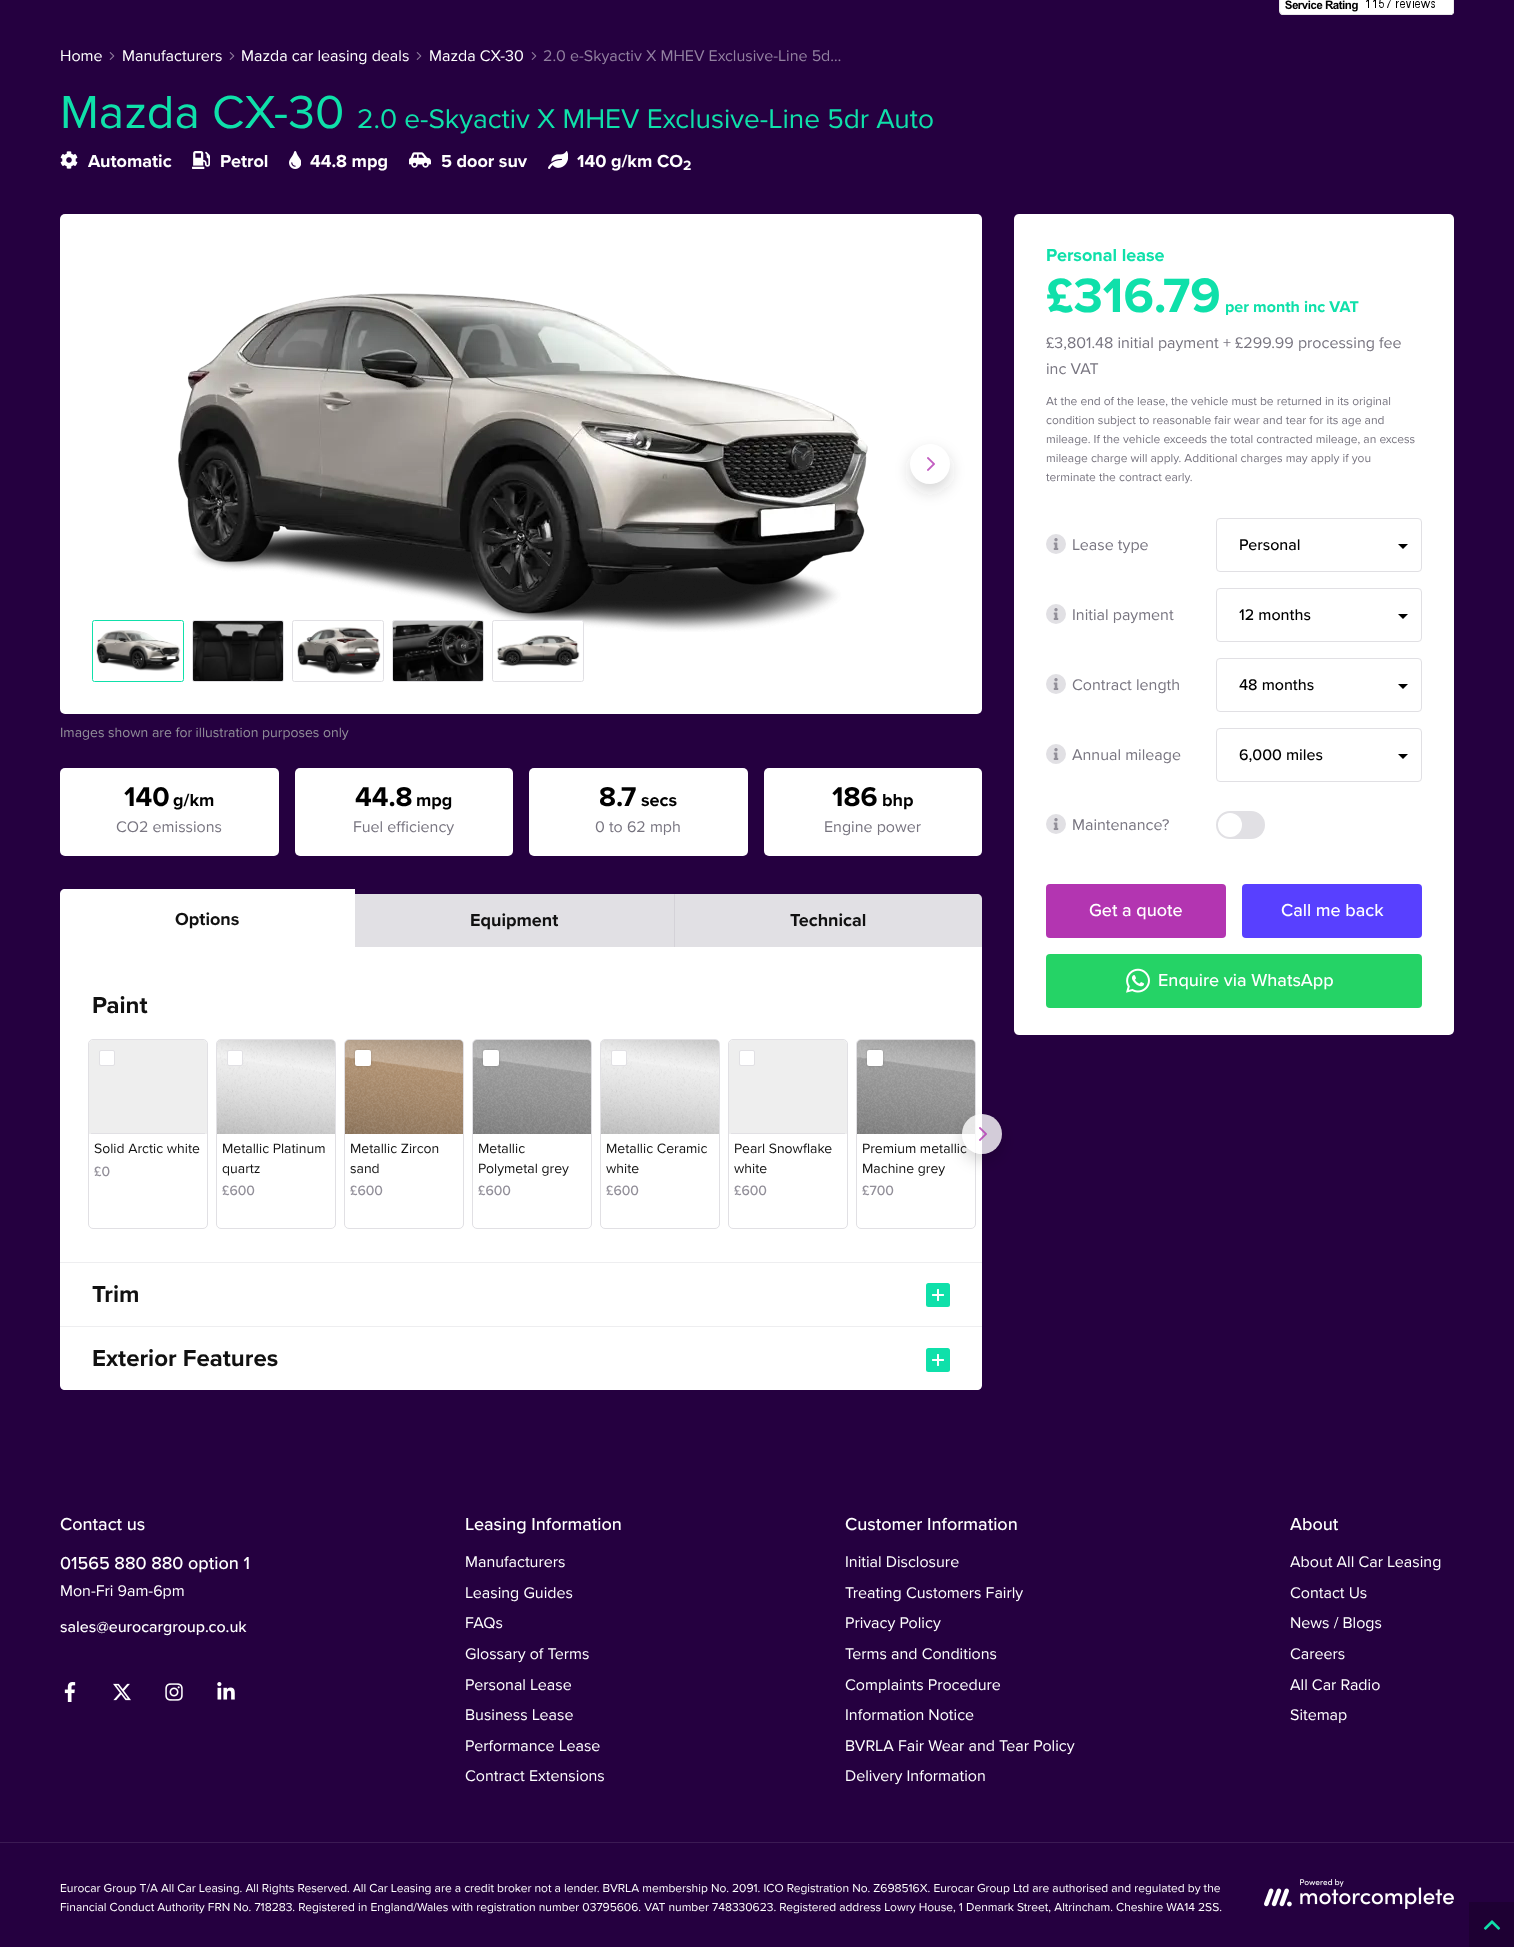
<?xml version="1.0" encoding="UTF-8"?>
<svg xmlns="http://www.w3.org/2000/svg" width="1514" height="1947">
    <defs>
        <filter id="blur1" x="-50%" y="-200%" width="200%" height="500%"><feGaussianBlur stdDeviation="7.5"/></filter>
        <filter id="blur2" x="-50%" y="-200%" width="200%" height="500%"><feGaussianBlur stdDeviation="1"/></filter>
        <clipPath id="clip1"><path d="M 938 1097 H 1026 V 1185 H 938 Z M 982 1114 C 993 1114 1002 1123 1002 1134 C 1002 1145 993 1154 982 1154 C 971 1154 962 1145 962 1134 C 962 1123 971 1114 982 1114 Z" clip-rule="evenodd"/></clipPath>
    </defs>
    <rect width="100%" height="100%" fill="#250040"/>
    <image x="1279" y="0" width="175" height="15" href="img_01.png"/>
    <text x="60" y="61" font-family="Proxima Nova" font-size="16" fill="#FFFFFF">Home</text>
    <image x="109" y="52" width="6" height="8" href="img_02.png"/>
    <text x="122" y="61" font-family="Proxima Nova" font-size="16" fill="#FFFFFF">Manufacturers</text>
    <image x="229" y="52" width="6" height="8" href="img_02.png"/>
    <text x="241" y="61" font-family="Proxima Nova" font-size="16" fill="#FFFFFF">Mazda car leasing deals</text>
    <image x="416" y="52" width="6" height="8" href="img_02.png"/>
    <text x="429" y="61" font-family="Proxima Nova" font-size="16" fill="#FFFFFF">Mazda CX-30</text>
    <image x="531" y="52" width="6" height="8" href="img_02.png"/>
    <text x="543" y="61" font-family="Proxima Nova" font-size="16" fill="#9280A0">2.0 e-Skyactiv X MHEV Exclusive-Line 5d…</text>
    <text x="60" y="128" font-family="Proxima Nova" font-size="48" fill="#0FE0AA">Mazda CX-30</text>
    <text x="357" y="128" font-family="Proxima Nova" font-size="28" fill="#0FE0AA">2.0 e-Skyactiv X MHEV Exclusive-Line 5dr Auto</text>
    <image x="60" y="151" width="18" height="18" href="img_03.png"/>
    <text x="88" y="167" font-family="Proxima Nova" font-size="18" font-weight="700" fill="#FFFFFF">Automatic</text>
    <image x="192" y="151" width="18" height="18" href="img_04.png"/>
    <text x="220" y="167" font-family="Proxima Nova" font-size="18" font-weight="700" fill="#FFFFFF">Petrol</text>
    <image x="289" y="151" width="12" height="18" href="img_05.png"/>
    <text x="310" y="167" font-family="Proxima Nova" font-size="18" font-weight="700" fill="#FFFFFF">44.8 mpg</text>
    <image x="409" y="152" width="22" height="16" href="img_06.png"/>
    <text x="441" y="167" font-family="Proxima Nova" font-size="18" font-weight="700" fill="#FFFFFF">5 door suv</text>
    <image x="548" y="151" width="20" height="18" href="img_07.png"/>
    <text x="577" y="167" font-family="Proxima Nova" font-size="18" font-weight="700" fill="#FFFFFF">140 g/km CO</text>
    <text x="683" y="170" font-family="Proxima Nova" font-size="14" font-weight="700" fill="#FFFFFF">2</text>
    <rect x="60" y="214" width="922" height="500" rx="5" fill="#FFFFFF"/>
    <image x="178" y="293" width="690" height="339" href="img_08.png"/>
    <rect x="910" y="451" width="40" height="40" rx="20" fill="#333333" fill-opacity="0.2" filter="url(#blur1)"/>
    <circle cx="930" cy="464" r="20" fill="#FFFFFF"/>
    <image x="927" y="457" width="8" height="14" href="img_09.png"/>
    <rect x="92.5" y="620.5" width="91" height="61" rx="2" fill="none" stroke="#0FE0AA"/>
    <image x="96" y="630" width="85" height="41" href="img_10.png"/>
    <rect x="192.5" y="620.5" width="91" height="61" rx="2" fill="none" stroke="#E1E0E4"/>
    <image x="193" y="621" width="90" height="60" href="img_11.png"/>
    <rect x="292.5" y="620.5" width="91" height="61" rx="2" fill="none" stroke="#E1E0E4"/>
    <image x="297" y="627" width="84" height="48" href="img_12.png"/>
    <rect x="392.5" y="620.5" width="91" height="61" rx="2" fill="none" stroke="#E1E0E4"/>
    <image x="393" y="621" width="90" height="60" href="img_13.png"/>
    <rect x="492.5" y="620.5" width="91" height="61" rx="2" fill="#FFFFFF" stroke="#E1E0E4"/>
    <image x="496" y="635" width="84" height="32" href="img_14.png"/>
    <text x="60" y="737" font-family="Proxima Nova" font-size="14" fill="#928F99">Images shown are for illustration purposes only</text>
    <rect x="1014" y="214" width="440" height="821" rx="5" fill="#FFFFFF"/>
    <text x="1046" y="261" font-family="Proxima Nova" font-size="18" font-weight="700" fill="#0FE0AA">Personal lease</text>
    <text x="1046" y="312" font-family="Proxima Nova" font-size="50" font-weight="700" fill="#0FE0AA">£316.79</text>
    <text x="1225" y="312" font-family="Proxima Nova" font-size="16" font-weight="700" fill="#0FE0AA">per month inc VAT</text>
    <text font-family="Proxima Nova" font-size="16" fill="#787580">
        <tspan x="1046" y="348">£3,801.48 initial payment + £299.99 processing fee</tspan>
        <tspan x="1046" y="374">inc VAT</tspan>
    </text>
    <text font-family="Proxima Nova" font-size="12" fill="#787580">
        <tspan x="1046" y="405">At the end of the lease, the vehicle must be returned in its original</tspan>
        <tspan x="1046" y="424">condition subject to reasonable fair wear and tear for its age and</tspan>
        <tspan x="1046" y="443">mileage. If the vehicle exceeds the total contracted mileage, an excess</tspan>
        <tspan x="1046" y="462">mileage charge will apply. Additional charges may apply if you</tspan>
        <tspan x="1046" y="481">terminate the contract early.</tspan>
    </text>
    <circle cx="1056" cy="544" r="10" fill="#E1E0E4"/>
    <image x="1053" y="538" width="6" height="12" href="img_15.png"/>
    <text x="1072" y="550" font-family="Proxima Nova" font-size="16" fill="#787580">Lease type</text>
    <path d="M 1398 544 L 1403 549 L 1408 544 Z" fill="#000000"/>
    <rect x="1216.5" y="518.5" width="205" height="53" rx="3.5" fill="none" stroke="#E1E0E4"/>
    <text x="1239" y="550" font-family="Proxima Nova" font-size="16" font-weight="500" fill="#000000">Personal</text>
    <circle cx="1056" cy="614" r="10" fill="#E1E0E4"/>
    <image x="1053" y="608" width="6" height="12" href="img_15.png"/>
    <text x="1072" y="620" font-family="Proxima Nova" font-size="16" fill="#787580">Initial payment</text>
    <path d="M 1398 614 L 1403 619 L 1408 614 Z" fill="#000000"/>
    <rect x="1216.5" y="588.5" width="205" height="53" rx="3.5" fill="none" stroke="#E1E0E4"/>
    <text x="1239" y="620" font-family="Proxima Nova" font-size="16" font-weight="500" fill="#000000">12 months</text>
    <circle cx="1056" cy="684" r="10" fill="#E1E0E4"/>
    <image x="1053" y="678" width="6" height="12" href="img_15.png"/>
    <text x="1072" y="690" font-family="Proxima Nova" font-size="16" fill="#787580">Contract length</text>
    <path d="M 1398 684 L 1403 689 L 1408 684 Z" fill="#000000"/>
    <rect x="1216.5" y="658.5" width="205" height="53" rx="3.5" fill="none" stroke="#E1E0E4"/>
    <text x="1239" y="690" font-family="Proxima Nova" font-size="16" font-weight="500" fill="#000000">48 months</text>
    <circle cx="1056" cy="754" r="10" fill="#E1E0E4"/>
    <image x="1053" y="748" width="6" height="12" href="img_15.png"/>
    <text x="1072" y="760" font-family="Proxima Nova" font-size="16" fill="#787580">Annual mileage</text>
    <path d="M 1398 754 L 1403 759 L 1408 754 Z" fill="#000000"/>
    <rect x="1216.5" y="728.5" width="205" height="53" rx="3.5" fill="none" stroke="#E1E0E4"/>
    <text x="1239" y="760" font-family="Proxima Nova" font-size="16" font-weight="500" fill="#000000">6,000 miles</text>
    <circle cx="1056" cy="824" r="10" fill="#E1E0E4"/>
    <image x="1053" y="818" width="6" height="12" href="img_15.png"/>
    <text x="1072" y="830" font-family="Proxima Nova" font-size="16" fill="#787580">Maintenance?</text>
    <rect x="1217" y="812" width="47" height="26" rx="13" fill="#E1E0E4" stroke="#E1E0E4" stroke-width="2"/>
    <circle cx="1230" cy="825" r="12" fill="#FFFFFF"/>
    <rect x="1046" y="884" width="180" height="54" rx="4" fill="#B335B1"/>
    <text x="1089" y="916" font-family="Proxima Nova" font-size="18" font-weight="500" fill="#FFFFFF">Get a quote</text>
    <rect x="1242" y="884" width="180" height="54" rx="4" fill="#5840FF"/>
    <text x="1281" y="916" font-family="Proxima Nova" font-size="18" font-weight="500" fill="#FFFFFF">Call me back</text>
    <rect x="1046" y="954" width="376" height="54" rx="4" fill="#25D366"/>
    <image x="1126" y="968" width="24" height="25" href="img_16.png"/>
    <text x="1158" y="986" font-family="Proxima Nova" font-size="18" font-weight="500" fill="#FFFFFF">Enquire via WhatsApp</text>
    <rect x="60" y="768" width="219" height="88" rx="5" fill="#FFFFFF"/>
    <text x="124" y="806" font-family="Proxima Nova" font-size="28" font-weight="700" fill="#000000">140</text>
    <text x="173" y="806" font-family="Proxima Nova" font-size="18" font-weight="700" fill="#000000">g/km</text>
    <text x="116" y="832" font-family="Proxima Nova" font-size="16" fill="#787580">CO2 emissions</text>
    <rect x="295" y="768" width="218" height="88" rx="5" fill="#FFFFFF"/>
    <text x="355" y="806" font-family="Proxima Nova" font-size="28" font-weight="700" fill="#000000">44.8</text>
    <text x="416" y="806" font-family="Proxima Nova" font-size="18" font-weight="700" fill="#000000">mpg</text>
    <text x="353" y="832" font-family="Proxima Nova" font-size="16" fill="#787580">Fuel efficiency</text>
    <rect x="529" y="768" width="219" height="88" rx="5" fill="#FFFFFF"/>
    <text x="599" y="806" font-family="Proxima Nova" font-size="28" font-weight="700" fill="#000000">8.7</text>
    <text x="641" y="806" font-family="Proxima Nova" font-size="18" font-weight="700" fill="#000000">secs</text>
    <text x="595" y="832" font-family="Proxima Nova" font-size="16" fill="#787580">0 to 62 mph</text>
    <rect x="764" y="768" width="218" height="88" rx="5" fill="#FFFFFF"/>
    <text x="832" y="806" font-family="Proxima Nova" font-size="28" font-weight="700" fill="#000000">186</text>
    <text x="882" y="806" font-family="Proxima Nova" font-size="18" font-weight="700" fill="#000000">bhp</text>
    <text x="824" y="832" font-family="Proxima Nova" font-size="16" fill="#787580">Engine power</text>
    <path d="M 65 889 H 355 V 947 H 60 V 894 C 60 891 62 889 65 889 Z" fill="#FFFFFF"/>
    <text x="175" y="925" font-family="Proxima Nova" font-size="18" font-weight="700" fill="#111111">Options</text>
    <rect x="355" y="894" width="319" height="53" fill="#E1E0E4"/>
    <rect x="674" y="894" width="1" height="53" fill="#D4D2D8"/>
    <text x="470" y="926" font-family="Proxima Nova" font-size="18" font-weight="700" fill="#111111">Equipment</text>
    <path d="M 675 894 H 977 C 980 894 982 896 982 899 V 947 H 675 Z" fill="#E1E0E4"/>
    <text x="790" y="926" font-family="Proxima Nova" font-size="18" font-weight="700" fill="#111111">Technical</text>
    <path d="M 60 947 H 982 V 1385 C 982 1388 980 1390 977 1390 H 65 C 62 1390 60 1388 60 1385 Z" fill="#FFFFFF"/>
    <text x="92" y="1013" font-family="Proxima Nova" font-size="24" font-weight="700" fill="#111111">Paint</text>
    <rect x="88.5" y="1039.5" width="119" height="189" rx="4.5" fill="none" stroke="#E1E0E4"/>
    <path d="M 93 1040 H 203 C 205 1040 207 1042 207 1044 V 1134 H 89 V 1044 C 89 1042 91 1040 93 1040 Z" fill="#EEEEEE"/>
    <rect x="91" y="1133" width="114" height="1" fill="#E1E0E4"/>
    <rect x="99.5" y="1050.5" width="15" height="15" rx="1.5" fill="#FFFFFF" stroke="#E1E0E4"/>
    <text x="94" y="1153" font-family="Proxima Nova" font-size="14" fill="#111111">Solid Arctic white</text>
    <text x="94" y="1176" font-family="Proxima Nova" font-size="14" font-weight="500" fill="#928F99">£0</text>
    <rect x="216.5" y="1039.5" width="119" height="189" rx="4.5" fill="none" stroke="#E1E0E4"/>
    <path d="M 221 1040 H 331 C 333 1040 335 1042 335 1044 V 1134 H 217 V 1044 C 217 1042 219 1040 221 1040 Z" fill="#EEEEEE"/>
    <image x="217" y="1040" width="118" height="94" href="img_17.png"/>
    <rect x="227.5" y="1050.5" width="15" height="15" rx="1.5" fill="#FFFFFF" stroke="#E1E0E4"/>
    <text font-family="Proxima Nova" font-size="14" fill="#111111">
        <tspan x="222" y="1153">Metallic Platinum</tspan>
        <tspan x="222" y="1173">quartz</tspan>
    </text>
    <text x="222" y="1195" font-family="Proxima Nova" font-size="14" font-weight="500" fill="#928F99">£600</text>
    <rect x="344.5" y="1039.5" width="119" height="189" rx="4.5" fill="none" stroke="#E1E0E4"/>
    <path d="M 349 1040 H 459 C 461 1040 463 1042 463 1044 V 1134 H 345 V 1044 C 345 1042 347 1040 349 1040 Z" fill="#B09171"/>
    <image x="345" y="1040" width="118" height="94" href="img_18.png"/>
    <rect x="355" y="1050" width="16" height="16" rx="2" fill="#000000" fill-opacity="0.2" filter="url(#blur2)"/>
    <rect x="355" y="1050" width="16" height="16" rx="2" fill="#FFFFFF"/>
    <text font-family="Proxima Nova" font-size="14" fill="#111111">
        <tspan x="350" y="1153">Metallic Zircon</tspan>
        <tspan x="350" y="1173">sand</tspan>
    </text>
    <text x="350" y="1195" font-family="Proxima Nova" font-size="14" font-weight="500" fill="#928F99">£600</text>
    <rect x="472.5" y="1039.5" width="119" height="189" rx="4.5" fill="none" stroke="#E1E0E4"/>
    <path d="M 477 1040 H 587 C 589 1040 591 1042 591 1044 V 1134 H 473 V 1044 C 473 1042 475 1040 477 1040 Z" fill="#9D9D9D"/>
    <image x="473" y="1040" width="118" height="94" href="img_19.png"/>
    <rect x="483" y="1050" width="16" height="16" rx="2" fill="#000000" fill-opacity="0.2" filter="url(#blur2)"/>
    <rect x="483" y="1050" width="16" height="16" rx="2" fill="#FFFFFF"/>
    <text font-family="Proxima Nova" font-size="14" fill="#111111">
        <tspan x="478" y="1153">Metallic</tspan>
        <tspan x="478" y="1173">Polymetal grey</tspan>
    </text>
    <text x="478" y="1195" font-family="Proxima Nova" font-size="14" font-weight="500" fill="#928F99">£600</text>
    <rect x="600.5" y="1039.5" width="119" height="189" rx="4.5" fill="none" stroke="#E1E0E4"/>
    <path d="M 605 1040 H 715 C 717 1040 719 1042 719 1044 V 1134 H 601 V 1044 C 601 1042 603 1040 605 1040 Z" fill="#EEEEEE"/>
    <image x="601" y="1040" width="118" height="94" href="img_17.png"/>
    <rect x="611.5" y="1050.5" width="15" height="15" rx="1.5" fill="#FFFFFF" stroke="#E1E0E4"/>
    <text font-family="Proxima Nova" font-size="14" fill="#111111">
        <tspan x="606" y="1153">Metallic Ceramic</tspan>
        <tspan x="606" y="1173">white</tspan>
    </text>
    <text x="606" y="1195" font-family="Proxima Nova" font-size="14" font-weight="500" fill="#928F99">£600</text>
    <rect x="728.5" y="1039.5" width="119" height="189" rx="4.5" fill="none" stroke="#E1E0E4"/>
    <path d="M 733 1040 H 843 C 845 1040 847 1042 847 1044 V 1134 H 729 V 1044 C 729 1042 731 1040 733 1040 Z" fill="#EEEEEE"/>
    <rect x="731" y="1133" width="114" height="1" fill="#E1E0E4"/>
    <rect x="739.5" y="1050.5" width="15" height="15" rx="1.5" fill="#FFFFFF" stroke="#E1E0E4"/>
    <text font-family="Proxima Nova" font-size="14" fill="#111111">
        <tspan x="734" y="1153">Pearl Snowflake</tspan>
        <tspan x="734" y="1173">white</tspan>
    </text>
    <text x="734" y="1195" font-family="Proxima Nova" font-size="14" font-weight="500" fill="#928F99">£600</text>
    <rect x="856.5" y="1039.5" width="119" height="189" rx="4.5" fill="none" stroke="#E1E0E4"/>
    <path d="M 861 1040 H 971 C 973 1040 975 1042 975 1044 V 1134 H 857 V 1044 C 857 1042 859 1040 861 1040 Z" fill="#9D9D9D"/>
    <image x="857" y="1040" width="118" height="94" href="img_19.png"/>
    <rect x="867" y="1050" width="16" height="16" rx="2" fill="#000000" fill-opacity="0.2" filter="url(#blur2)"/>
    <rect x="867" y="1050" width="16" height="16" rx="2" fill="#FFFFFF"/>
    <text font-family="Proxima Nova" font-size="14" fill="#111111">
        <tspan x="862" y="1153">Premium metallic</tspan>
        <tspan x="862" y="1173">Machine grey</tspan>
    </text>
    <text x="862" y="1195" font-family="Proxima Nova" font-size="14" font-weight="500" fill="#928F99">£700</text>
    <g clip-path="url(#clip1)">
        <rect x="962" y="1121" width="40" height="40" rx="20" fill="#000000" fill-opacity="0.16" filter="url(#blur1)"/>
    </g>
    <circle cx="982" cy="1134" r="20" fill="#FFFFFF" fill-opacity="0.8"/>
    <image x="979" y="1127" width="8" height="14" href="img_20.png"/>
    <rect x="60" y="1262" width="922" height="1" fill="#EEEEF0"/>
    <text x="92" y="1302" font-family="Proxima Nova" font-size="24" font-weight="700" fill="#111111">Trim</text>
    <rect x="926" y="1283" width="24" height="24" rx="2.5" fill="#0FE0AA"/>
    <image x="932" y="1289" width="12" height="12" href="img_21.png"/>
    <rect x="60" y="1326" width="922" height="1" fill="#EEEEF0"/>
    <text x="92" y="1366" font-family="Proxima Nova" font-size="24" font-weight="700" fill="#111111">Exterior Features</text>
    <rect x="926" y="1348" width="24" height="24" rx="2.5" fill="#0FE0AA"/>
    <image x="932" y="1354" width="12" height="12" href="img_21.png"/>
    <text x="60" y="1530" font-family="Proxima Nova" font-size="18" font-weight="500" fill="#FFFFFF">Contact us</text>
    <text x="60" y="1569" font-family="Proxima Nova" font-size="18" font-weight="500" fill="#FFFFFF">01565 880 880 option 1</text>
    <text x="60" y="1596" font-family="Proxima Nova" font-size="16" fill="#FFFFFF">Mon-Fri 9am-6pm</text>
    <text x="60" y="1632" font-family="Proxima Nova" font-size="16" font-weight="500" fill="#FFFFFF">sales@eurocargroup.co.uk</text>
    <image x="64" y="1682" width="12" height="20" href="img_22.png"/>
    <image x="113" y="1683" width="18" height="18" href="img_23.png"/>
    <image x="165" y="1683" width="18" height="18" href="img_24.png"/>
    <image x="217" y="1682" width="18" height="18" href="img_25.png"/>
    <text x="465" y="1530" font-family="Proxima Nova" font-size="18" font-weight="500" fill="#FFFFFF">Leasing Information</text>
    <text font-family="Proxima Nova" font-size="16" fill="#FFFFFF">
        <tspan x="465" y="1567">Manufacturers</tspan>
        <tspan x="465" y="1598">Leasing Guides</tspan>
        <tspan x="465" y="1628">FAQs</tspan>
        <tspan x="465" y="1659">Glossary of Terms</tspan>
        <tspan x="465" y="1690">Personal Lease</tspan>
        <tspan x="465" y="1720">Business Lease</tspan>
        <tspan x="465" y="1751">Performance Lease</tspan>
        <tspan x="465" y="1781">Contract Extensions</tspan>
    </text>
    <text x="845" y="1530" font-family="Proxima Nova" font-size="18" font-weight="500" fill="#FFFFFF">Customer Information</text>
    <text font-family="Proxima Nova" font-size="16" fill="#FFFFFF">
        <tspan x="845" y="1567">Initial Disclosure</tspan>
        <tspan x="845" y="1598">Treating Customers Fairly</tspan>
        <tspan x="845" y="1628">Privacy Policy</tspan>
        <tspan x="845" y="1659">Terms and Conditions</tspan>
        <tspan x="845" y="1690">Complaints Procedure</tspan>
        <tspan x="845" y="1720">Information Notice</tspan>
        <tspan x="845" y="1751">BVRLA Fair Wear and Tear Policy</tspan>
        <tspan x="845" y="1781">Delivery Information</tspan>
    </text>
    <text x="1290" y="1530" font-family="Proxima Nova" font-size="18" font-weight="500" fill="#FFFFFF">About</text>
    <text font-family="Proxima Nova" font-size="16" fill="#FFFFFF">
        <tspan x="1290" y="1567">About All Car Leasing</tspan>
        <tspan x="1290" y="1598">Contact Us</tspan>
        <tspan x="1290" y="1628">News / Blogs</tspan>
        <tspan x="1290" y="1659">Careers</tspan>
        <tspan x="1290" y="1690">All Car Radio</tspan>
        <tspan x="1290" y="1720">Sitemap</tspan>
    </text>
    <rect x="0" y="1842" width="1514" height="1" fill="#3B1A53"/>
    <text font-family="Proxima Nova" font-size="12" fill="#FFFFFF">
        <tspan x="60" y="1892">Eurocar Group T/A All Car Leasing. All Rights Reserved. All Car Leasing are a credit broker not a lender. BVRLA membership No. 2091. ICO Registration No. Z698516X. Eurocar Group Ltd are authorised and regulated by the</tspan>
        <tspan x="60" y="1911">Financial Conduct Authority FRN No. 718283. Registered in England/Wales with registration number 03795606. VAT number 748330623. Registered address Lowry House, 1 Denmark Street, Altrincham. Cheshire WA14 2SS.</tspan>
    </text>
    <image x="1264" y="1879" width="190" height="30" href="img_26.png"/>
    <rect x="1469" y="1902" width="45" height="45" fill="#1E0033"/>
    <image x="1483" y="1920" width="18" height="10" href="img_27.png"/>
</svg>
